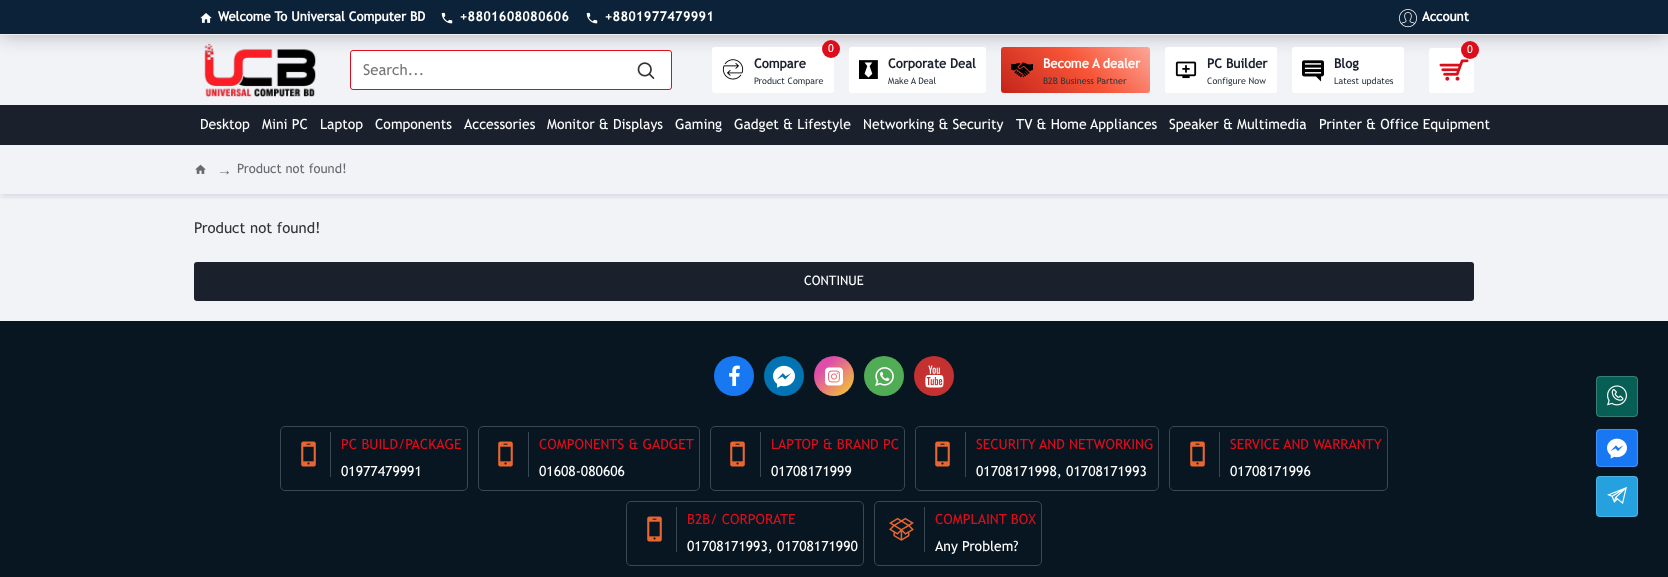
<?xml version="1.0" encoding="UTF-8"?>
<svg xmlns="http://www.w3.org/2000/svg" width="1668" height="577">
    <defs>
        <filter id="blur1" x="-50%" y="-200%" width="200%" height="500%"><feGaussianBlur stdDeviation="10"/></filter>
        <linearGradient id="g1" gradientUnits="userSpaceOnUse" x1="1121" y1="282" x2="1477" y2="-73"><stop offset="0" stop-color="#A40606"/><stop offset="0.25" stop-color="#F85639"/><stop offset="0.5" stop-color="#FFFFFF"/><stop offset="0.75" stop-color="#F53844"/><stop offset="1" stop-color="#00237E"/></linearGradient>
        <clipPath id="clip1"><rect x="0" y="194" width="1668" height="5"/></clipPath>
        <filter id="blur2" x="-50%" y="-200%" width="200%" height="500%"><feGaussianBlur stdDeviation="2.5"/></filter>
        <linearGradient id="g2" gradientUnits="userSpaceOnUse" x1="854" y1="396" x2="814" y2="356"><stop offset="0" stop-color="#F6D327"/><stop offset="0.74" stop-color="#DE4DAA"/></linearGradient>
    </defs>
    <rect width="100%" height="100%" fill="#F2F3F7"/>
    <rect x="0" y="0" width="1668" height="35" fill="#000000" fill-opacity="0.28" filter="url(#blur1)"/>
    <rect x="0" y="0" width="1668" height="34" fill="#0B2239"/>
    <rect x="0" y="34" width="1668" height="1" fill="#EEEEEE"/>
    <image x="200" y="13" width="12" height="10" href="img_01.png"/>
    <text x="218" y="21" font-family="Trebuchet MS" font-size="13" font-weight="700" fill="#FFFFFF">Welcome To Universal Computer BD</text>
    <image x="441" y="12" width="12" height="12" href="img_02.png"/>
    <text x="460" y="21" font-family="Trebuchet MS" font-size="13" font-weight="700" letter-spacing="1" fill="#FFFFFF">+8801608080606</text>
    <image x="586" y="12" width="12" height="12" href="img_02.png"/>
    <text x="605" y="21" font-family="Trebuchet MS" font-size="13" font-weight="700" letter-spacing="1" fill="#FFFFFF">+8801977479991</text>
    <image x="1399" y="9" width="18" height="19" href="img_03.png"/>
    <text x="1422" y="21" font-family="Trebuchet MS" font-size="13" font-weight="700" fill="#FFFFFF">Account</text>
    <image x="204" y="43" width="112" height="54" href="img_04.png"/>
    <rect x="350.5" y="50.5" width="321" height="39" rx="2.5" fill="none" stroke="#DD0E1C"/>
    <path d="M 354 51 H 621 V 89 H 354 C 352.5 89 351 87.5 351 86 V 54 C 351 52.5 352.5 51 354 51 Z" fill="#FFFFFF"/>
    <text x="363" y="75" font-family="Trebuchet MS" font-size="15" fill="#757575">Search...</text>
    <path d="M 621 51 H 668 C 669.5 51 671 52.5 671 54 V 86 C 671 87.5 669.5 89 668 89 H 621 Z" fill="#FFFFFF"/>
    <image x="637" y="62" width="18" height="17" href="img_05.png"/>
    <rect x="712" y="47" width="122" height="46" rx="3" fill="#FFFFFF"/>
    <circle cx="831" cy="49" r="9" fill="#DD0E1C"/>
    <text x="828" y="52" font-family="Trebuchet MS" font-size="11" fill="#FFFFFF">0</text>
    <image x="722" y="59" width="22" height="21" href="img_06.png"/>
    <text x="754" y="68" font-family="Trebuchet MS" font-size="13" font-weight="700" fill="#1A202C">Compare</text>
    <text x="754" y="84" font-family="Trebuchet MS" font-size="9" fill="#2C3640">Product Compare</text>
    <rect x="849" y="47" width="137" height="46" rx="3" fill="#FFFFFF"/>
    <image x="859" y="60" width="19" height="19" href="img_07.png"/>
    <text x="888" y="68" font-family="Trebuchet MS" font-size="13" font-weight="700" fill="#1A202C">Corporate Deal</text>
    <text x="888" y="84" font-family="Trebuchet MS" font-size="9" fill="#2C3640">Make A Deal</text>
    <rect x="1001" y="47" width="149" height="46" rx="3" fill="url(#g1)"/>
    <image x="1011" y="62" width="22" height="16" href="img_08.png"/>
    <text x="1043" y="68" font-family="Trebuchet MS" font-size="13" font-weight="700" fill="#FFFFFF">Become A dealer</text>
    <text x="1043" y="84" font-family="Trebuchet MS" font-size="9" fill="#2C3640">B2B Business Partner</text>
    <rect x="1165" y="47" width="112" height="46" rx="3" fill="#FFFFFF"/>
    <image x="1175" y="61" width="22" height="18" href="img_09.png"/>
    <text x="1207" y="68" font-family="Trebuchet MS" font-size="13" font-weight="700" fill="#1A202C">PC Builder</text>
    <text x="1207" y="84" font-family="Trebuchet MS" font-size="9" fill="#2C3640">Configure Now</text>
    <rect x="1292" y="47" width="112" height="46" rx="3" fill="#FFFFFF"/>
    <image x="1302" y="60" width="22" height="22" href="img_10.png"/>
    <text x="1334" y="68" font-family="Trebuchet MS" font-size="13" font-weight="700" fill="#1A202C">Blog</text>
    <text x="1334" y="84" font-family="Trebuchet MS" font-size="9" fill="#2C3640">Latest updates</text>
    <rect x="1429" y="48" width="45" height="45" rx="3" fill="#FFFFFF"/>
    <circle cx="1470" cy="50" r="9" fill="#DD0E1C"/>
    <text x="1467" y="53" font-family="Trebuchet MS" font-size="11" fill="#FFFFFF">0</text>
    <image x="1439" y="59" width="30" height="22" href="img_11.png"/>
    <g clip-path="url(#clip1)">
        <rect x="1" y="146" width="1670" height="51" fill="#1A202C" fill-opacity="0.1" filter="url(#blur2)"/>
    </g>
    <rect x="0" y="105" width="1668" height="40" fill="#1A202C"/>
    <text x="200" y="129" font-family="Trebuchet MS" font-size="14" fill="#FFFFFF">Desktop</text>
    <text x="262" y="129" font-family="Trebuchet MS" font-size="14" fill="#FFFFFF">Mini PC</text>
    <text x="320" y="129" font-family="Trebuchet MS" font-size="14" fill="#FFFFFF">Laptop</text>
    <text x="375" y="129" font-family="Trebuchet MS" font-size="14" fill="#FFFFFF">Components</text>
    <text x="464" y="129" font-family="Trebuchet MS" font-size="14" fill="#FFFFFF">Accessories</text>
    <text x="547" y="129" font-family="Trebuchet MS" font-size="14" fill="#FFFFFF">Monitor &amp; Displays</text>
    <text x="675" y="129" font-family="Trebuchet MS" font-size="14" fill="#FFFFFF">Gaming</text>
    <text x="734" y="129" font-family="Trebuchet MS" font-size="14" fill="#FFFFFF">Gadget &amp; Lifestyle</text>
    <text x="863" y="129" font-family="Trebuchet MS" font-size="14" fill="#FFFFFF">Networking &amp; Security</text>
    <text x="1016" y="129" font-family="Trebuchet MS" font-size="14" fill="#FFFFFF">TV &amp; Home Appliances</text>
    <text x="1169" y="129" font-family="Trebuchet MS" font-size="14" fill="#FFFFFF">Speaker &amp; Multimedia</text>
    <text x="1319" y="129" font-family="Trebuchet MS" font-size="14" fill="#FFFFFF">Printer &amp; Office Equipment</text>
    <image x="195" y="164" width="11" height="10" href="img_12.png"/>
    <text x="217" y="175" font-family="Liberation Serif" font-size="15" fill="#696973">→</text>
    <text x="237" y="173" font-family="Trebuchet MS" font-size="13" fill="#696973">Product not found!</text>
    <text x="194" y="233" font-family="Trebuchet MS" font-size="15" fill="#333333">Product not found!</text>
    <rect x="194" y="262" width="1280" height="39" rx="3" fill="#1A202C"/>
    <text x="804" y="285" font-family="Trebuchet MS" font-size="13" fill="#FFFFFF">CONTINUE</text>
    <rect x="0" y="321" width="1668" height="256" fill="#081621"/>
    <circle cx="734" cy="376" r="20" fill="#1778F2"/>
    <image x="729" y="365" width="11" height="21" href="img_13.png"/>
    <circle cx="784" cy="376" r="20" fill="#0274B3"/>
    <image x="773" y="365" width="22" height="23" href="img_14.png"/>
    <circle cx="834" cy="376" r="20" fill="url(#g2)"/>
    <image x="825" y="367" width="18" height="19" href="img_15.png"/>
    <circle cx="884" cy="376" r="20" fill="#50AD55"/>
    <image x="875" y="367" width="19" height="19" href="img_16.png"/>
    <circle cx="934" cy="376" r="20" fill="#C53030"/>
    <image x="925" y="365" width="19" height="23" href="img_17.png"/>
    <rect x="280.5" y="426.5" width="187" height="64" rx="4.5" fill="none" stroke="#3A4754"/>
    <rect x="330" y="432" width="1" height="45" fill="#3A4754"/>
    <image x="301" y="441" width="15" height="26" href="img_18.png"/>
    <text x="341" y="449" font-family="Trebuchet MS" font-size="14" fill="#DD0E1C">PC BUILD/PACKAGE</text>
    <text x="341" y="476" font-family="Trebuchet MS" font-size="14" fill="#FFFFFF">01977479991</text>
    <rect x="478.5" y="426.5" width="221" height="64" rx="4.5" fill="none" stroke="#3A4754"/>
    <rect x="528" y="432" width="1" height="45" fill="#3A4754"/>
    <image x="498" y="441" width="15" height="26" href="img_18.png"/>
    <text x="539" y="449" font-family="Trebuchet MS" font-size="14" fill="#DD0E1C">COMPONENTS &amp; GADGET</text>
    <text x="539" y="476" font-family="Trebuchet MS" font-size="14" fill="#FFFFFF">01608-080606</text>
    <rect x="710.5" y="426.5" width="194" height="64" rx="4.5" fill="none" stroke="#3A4754"/>
    <rect x="760" y="432" width="1" height="45" fill="#3A4754"/>
    <image x="730" y="441" width="15" height="26" href="img_18.png"/>
    <text x="771" y="449" font-family="Trebuchet MS" font-size="14" fill="#DD0E1C">LAPTOP &amp; BRAND PC</text>
    <text x="771" y="476" font-family="Trebuchet MS" font-size="14" fill="#FFFFFF">01708171999</text>
    <rect x="915.5" y="426.5" width="243" height="64" rx="4.5" fill="none" stroke="#3A4754"/>
    <rect x="965" y="432" width="1" height="45" fill="#3A4754"/>
    <image x="935" y="441" width="15" height="26" href="img_18.png"/>
    <text x="976" y="449" font-family="Trebuchet MS" font-size="14" fill="#DD0E1C">SECURITY AND NETWORKING</text>
    <text x="976" y="476" font-family="Trebuchet MS" font-size="14" fill="#FFFFFF">01708171998, 01708171993</text>
    <rect x="1169.5" y="426.5" width="218" height="64" rx="4.5" fill="none" stroke="#3A4754"/>
    <rect x="1219" y="432" width="1" height="45" fill="#3A4754"/>
    <image x="1190" y="441" width="15" height="26" href="img_18.png"/>
    <text x="1230" y="449" font-family="Trebuchet MS" font-size="14" fill="#DD0E1C">SERVICE AND WARRANTY</text>
    <text x="1230" y="476" font-family="Trebuchet MS" font-size="14" fill="#FFFFFF">01708171996</text>
    <rect x="626.5" y="501.5" width="237" height="64" rx="4.5" fill="none" stroke="#3A4754"/>
    <rect x="676" y="507" width="1" height="45" fill="#3A4754"/>
    <image x="647" y="516" width="15" height="26" href="img_18.png"/>
    <text x="687" y="524" font-family="Trebuchet MS" font-size="14" fill="#DD0E1C">B2B/ CORPORATE</text>
    <text x="687" y="551" font-family="Trebuchet MS" font-size="14" fill="#FFFFFF">01708171993, 01708171990</text>
    <rect x="874.5" y="501.5" width="167" height="64" rx="4.5" fill="none" stroke="#3A4754"/>
    <rect x="924" y="507" width="1" height="45" fill="#3A4754"/>
    <image x="889" y="517" width="25" height="24" href="img_19.png"/>
    <text x="935" y="524" font-family="Trebuchet MS" font-size="14" fill="#DD0E1C">COMPLAINT BOX</text>
    <text x="935" y="551" font-family="Trebuchet MS" font-size="14" fill="#FFFFFF">Any Problem?</text>
    <rect x="1596" y="376" width="42" height="41" rx="4" fill="#075E54"/>
    <rect x="1596.5" y="376.5" width="41" height="40" rx="3.5" fill="none" stroke="#FFFFFF" stroke-opacity="0.2"/>
    <image x="1607" y="385" width="20" height="21" href="img_20.png"/>
    <rect x="1596" y="429" width="42" height="38" rx="4" fill="#1877F2"/>
    <rect x="1596.5" y="429.5" width="41" height="37" rx="3.5" fill="none" stroke="#FFFFFF" stroke-opacity="0.2"/>
    <image x="1607" y="438" width="20" height="21" href="img_21.png"/>
    <rect x="1596" y="476" width="42" height="41" rx="4" fill="#24A1DE"/>
    <rect x="1596.5" y="476.5" width="41" height="40" rx="3.5" fill="none" stroke="#FFFFFF" stroke-opacity="0.2"/>
    <image x="1607" y="486" width="20" height="18" href="img_22.png"/>
</svg>
